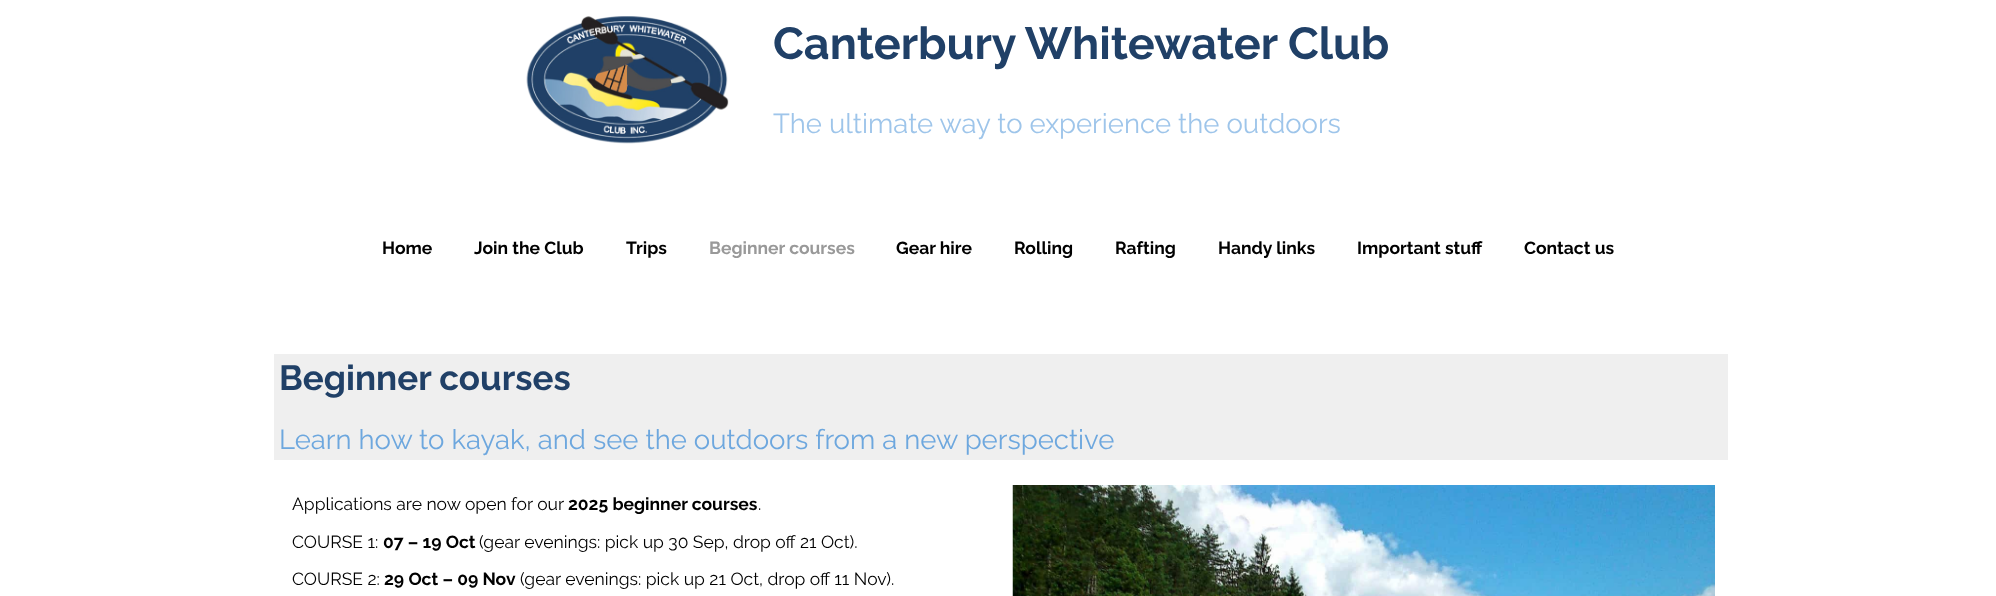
<?xml version="1.0" encoding="UTF-8"?>
<svg xmlns="http://www.w3.org/2000/svg" width="1996" height="596">
    <rect width="100%" height="100%" fill="#FFFFFF"/>
    <image x="526" y="16" width="203" height="128" href="img_01.png"/>
    <text x="773" y="59" font-family="Raleway" font-size="45" font-weight="700" fill="#204067">Canterbury Whitewater Club</text>
    <text x="773" y="133" font-family="Raleway" font-size="27.5" fill="#9EC5EA">The ultimate way to experience the outdoors</text>
    <text x="382" y="254" font-family="Raleway" font-size="17.5" font-weight="700" fill="#000000">Home</text>
    <text x="474" y="254" font-family="Raleway" font-size="17.5" font-weight="700" fill="#000000">Join the Club</text>
    <text x="626" y="254" font-family="Raleway" font-size="17.5" font-weight="700" fill="#000000">Trips</text>
    <text x="709" y="254" font-family="Raleway" font-size="17.5" font-weight="700" fill="#999999">Beginner courses</text>
    <text x="896" y="254" font-family="Raleway" font-size="17.5" font-weight="700" fill="#000000">Gear hire</text>
    <text x="1014" y="254" font-family="Raleway" font-size="17.5" font-weight="700" fill="#000000">Rolling</text>
    <text x="1115" y="254" font-family="Raleway" font-size="17.5" font-weight="700" fill="#000000">Rafting</text>
    <text x="1218" y="254" font-family="Raleway" font-size="17.5" font-weight="700" fill="#000000">Handy links</text>
    <text x="1357" y="254" font-family="Raleway" font-size="17.5" font-weight="700" fill="#000000">Important stuff</text>
    <text x="1524" y="254" font-family="Raleway" font-size="17.5" font-weight="700" fill="#000000">Contact us</text>
    <rect x="274" y="354" width="1454" height="106" fill="#EFEFEF"/>
    <text x="279" y="390" font-family="Raleway" font-size="35" font-weight="700" fill="#204067">Beginner courses</text>
    <text x="279" y="449" font-family="Raleway" font-size="27.5" fill="#6DA7DE">Learn how to kayak, and see the outdoors from a new perspective</text>
    <text x="292" y="510" font-family="Raleway" font-size="17.5" fill="#000000">Applications are now open for our</text>
    <text x="568" y="510" font-family="Raleway" font-size="17.5" font-weight="700" fill="#000000">2025 beginner courses</text>
    <text x="758" y="510" font-family="Raleway" font-size="17.5" fill="#000000">.</text>
    <text x="292" y="548" font-family="Raleway" font-size="17.5" fill="#000000">COURSE 1:</text>
    <text x="383" y="548" font-family="Raleway" font-size="17.5" font-weight="700" fill="#000000">07 – 19 Oct</text>
    <text x="479" y="548" font-family="Raleway" font-size="17.5" fill="#000000">(gear evenings: pick up 30 Sep, drop off 21 Oct).</text>
    <text x="292" y="585" font-family="Raleway" font-size="17.5" fill="#000000">COURSE 2:</text>
    <text x="384" y="585" font-family="Raleway" font-size="17.5" font-weight="700" fill="#000000">29 Oct – 09 Nov</text>
    <text x="520" y="585" font-family="Raleway" font-size="17.5" fill="#000000">(gear evenings: pick up 21 Oct, drop off 11 Nov).</text>
    <image x="1012" y="485" width="703" height="111" href="img_02.png"/>
</svg>
